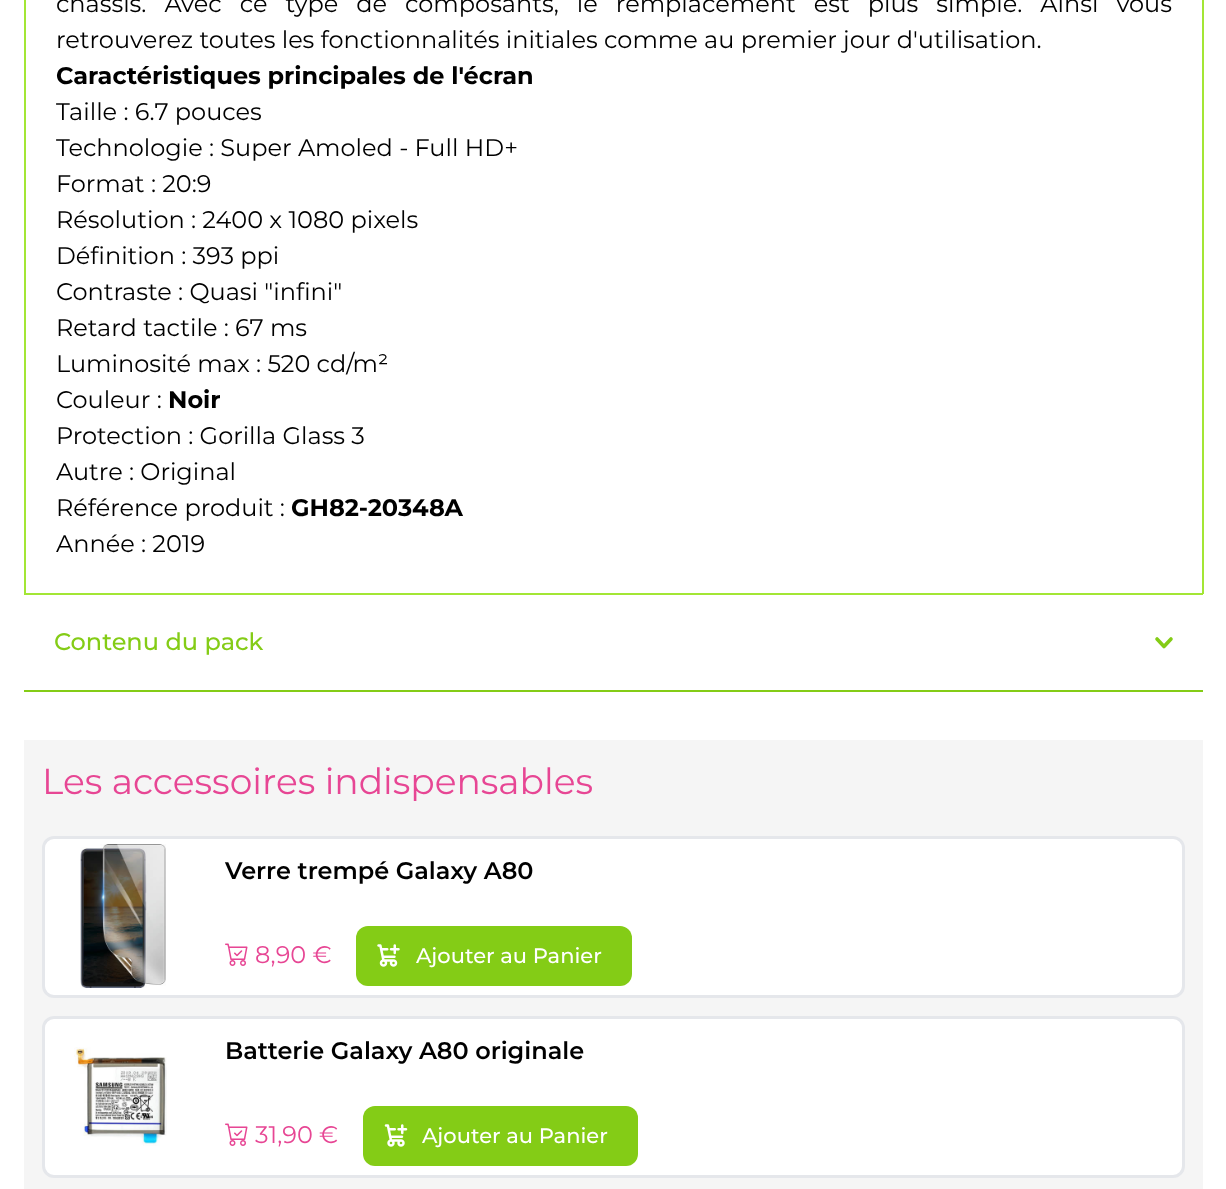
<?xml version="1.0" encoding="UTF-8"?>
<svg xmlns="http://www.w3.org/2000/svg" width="1226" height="1189">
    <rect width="100%" height="100%" fill="#FFFFFF"/>
    <rect x="1202" y="0" width="2" height="594" fill="#A3E635"/>
    <rect x="24" y="593" width="1179" height="2" fill="#A3E635"/>
    <rect x="24" y="0" width="2" height="594" fill="#A3E635"/>
    <text font-family="Montserrat" font-size="24" fill="#000000">
        <tspan x="56" y="12" word-spacing="11.75">châssis. Avec ce type de composants, le remplacement est plus simple. Ainsi vous</tspan>
        <tspan x="56" y="48">retrouverez toutes les fonctionnalités initiales comme au premier jour d'utilisation.</tspan>
    </text>
    <text x="56" y="84" font-family="Montserrat" font-size="24" font-weight="700" fill="#000000">Caractéristiques principales de l'écran</text>
    <text font-family="Montserrat" font-size="24" fill="#000000">
        <tspan x="56" y="120">Taille : 6.7 pouces</tspan>
        <tspan x="56" y="156">Technologie : Super Amoled - Full HD+</tspan>
        <tspan x="56" y="192">Format : 20:9</tspan>
        <tspan x="56" y="228">Résolution : 2400 x 1080 pixels</tspan>
        <tspan x="56" y="264">Définition : 393 ppi</tspan>
        <tspan x="56" y="300">Contraste : Quasi "infini"</tspan>
        <tspan x="56" y="336">Retard tactile : 67 ms</tspan>
        <tspan x="56" y="372">Luminosité max : 520 cd/m²</tspan>
        <tspan x="56" y="408">Couleur :</tspan>
    </text>
    <text x="168" y="408" font-family="Montserrat" font-size="24" font-weight="700" fill="#000000">Noir</text>
    <text font-family="Montserrat" font-size="24" fill="#000000">
        <tspan x="56" y="444">Protection : Gorilla Glass 3</tspan>
        <tspan x="56" y="480">Autre : Original</tspan>
        <tspan x="56" y="516">Référence produit :</tspan>
    </text>
    <text x="291" y="516" font-family="Montserrat" font-size="24" font-weight="700" fill="#000000">GH82-20348A</text>
    <text x="56" y="552" font-family="Montserrat" font-size="24" fill="#000000">Année : 2019</text>
    <rect x="24" y="690" width="1179" height="2" fill="#84CC16"/>
    <text x="54" y="650" font-family="Montserrat" font-size="24" font-weight="500" fill="#84CC16">Contenu du pack</text>
    <path d="M 1157 639 L 1164 646.5 L 1171 639" fill="none" stroke="#84CC16" stroke-width="3.6" stroke-linecap="round" stroke-linejoin="round"/>
    <rect x="24" y="740" width="1179" height="449" fill="#F5F5F5"/>
    <text x="42" y="794" font-family="Montserrat" font-size="36" fill="#E74694">Les accessoires indispensables</text>
    <rect x="43.5" y="837.5" width="1140" height="159" rx="10.5" fill="#FFFFFF" stroke="#E5E7EB" stroke-width="3"/>
    <image x="80" y="844" width="86" height="144" href="img_01.png"/>
    <text x="225" y="879" font-family="Montserrat" font-size="24" font-weight="600" fill="#000000">Verre trempé Galaxy A80</text>
    <image x="225" y="943" width="23" height="23" href="img_02.png"/>
    <text x="255" y="963" font-family="Montserrat" font-size="24" fill="#E74694">8,90 €</text>
    <rect x="356" y="926" width="276" height="60" rx="12" fill="#84CC16"/>
    <image x="377" y="944" width="23" height="23" href="img_03.png"/>
    <text x="416" y="963" font-family="Montserrat" font-size="21" font-weight="500" fill="#FFFFFF">Ajouter au Panier</text>
    <rect x="43.5" y="1017.5" width="1140" height="159" rx="10.5" fill="#FFFFFF" stroke="#E5E7EB" stroke-width="3"/>
    <image x="74" y="1047" width="93" height="99" href="img_04.png"/>
    <text x="225" y="1059" font-family="Montserrat" font-size="24" font-weight="600" fill="#000000">Batterie Galaxy A80 originale</text>
    <image x="225" y="1123" width="23" height="23" href="img_02.png"/>
    <text x="255" y="1143" font-family="Montserrat" font-size="24" fill="#E74694">31,90 €</text>
    <rect x="363" y="1106" width="275" height="60" rx="12" fill="#84CC16"/>
    <image x="384" y="1124" width="24" height="23" href="img_05.png"/>
    <text x="422" y="1143" font-family="Montserrat" font-size="21" font-weight="500" fill="#FFFFFF">Ajouter au Panier</text>
</svg>
